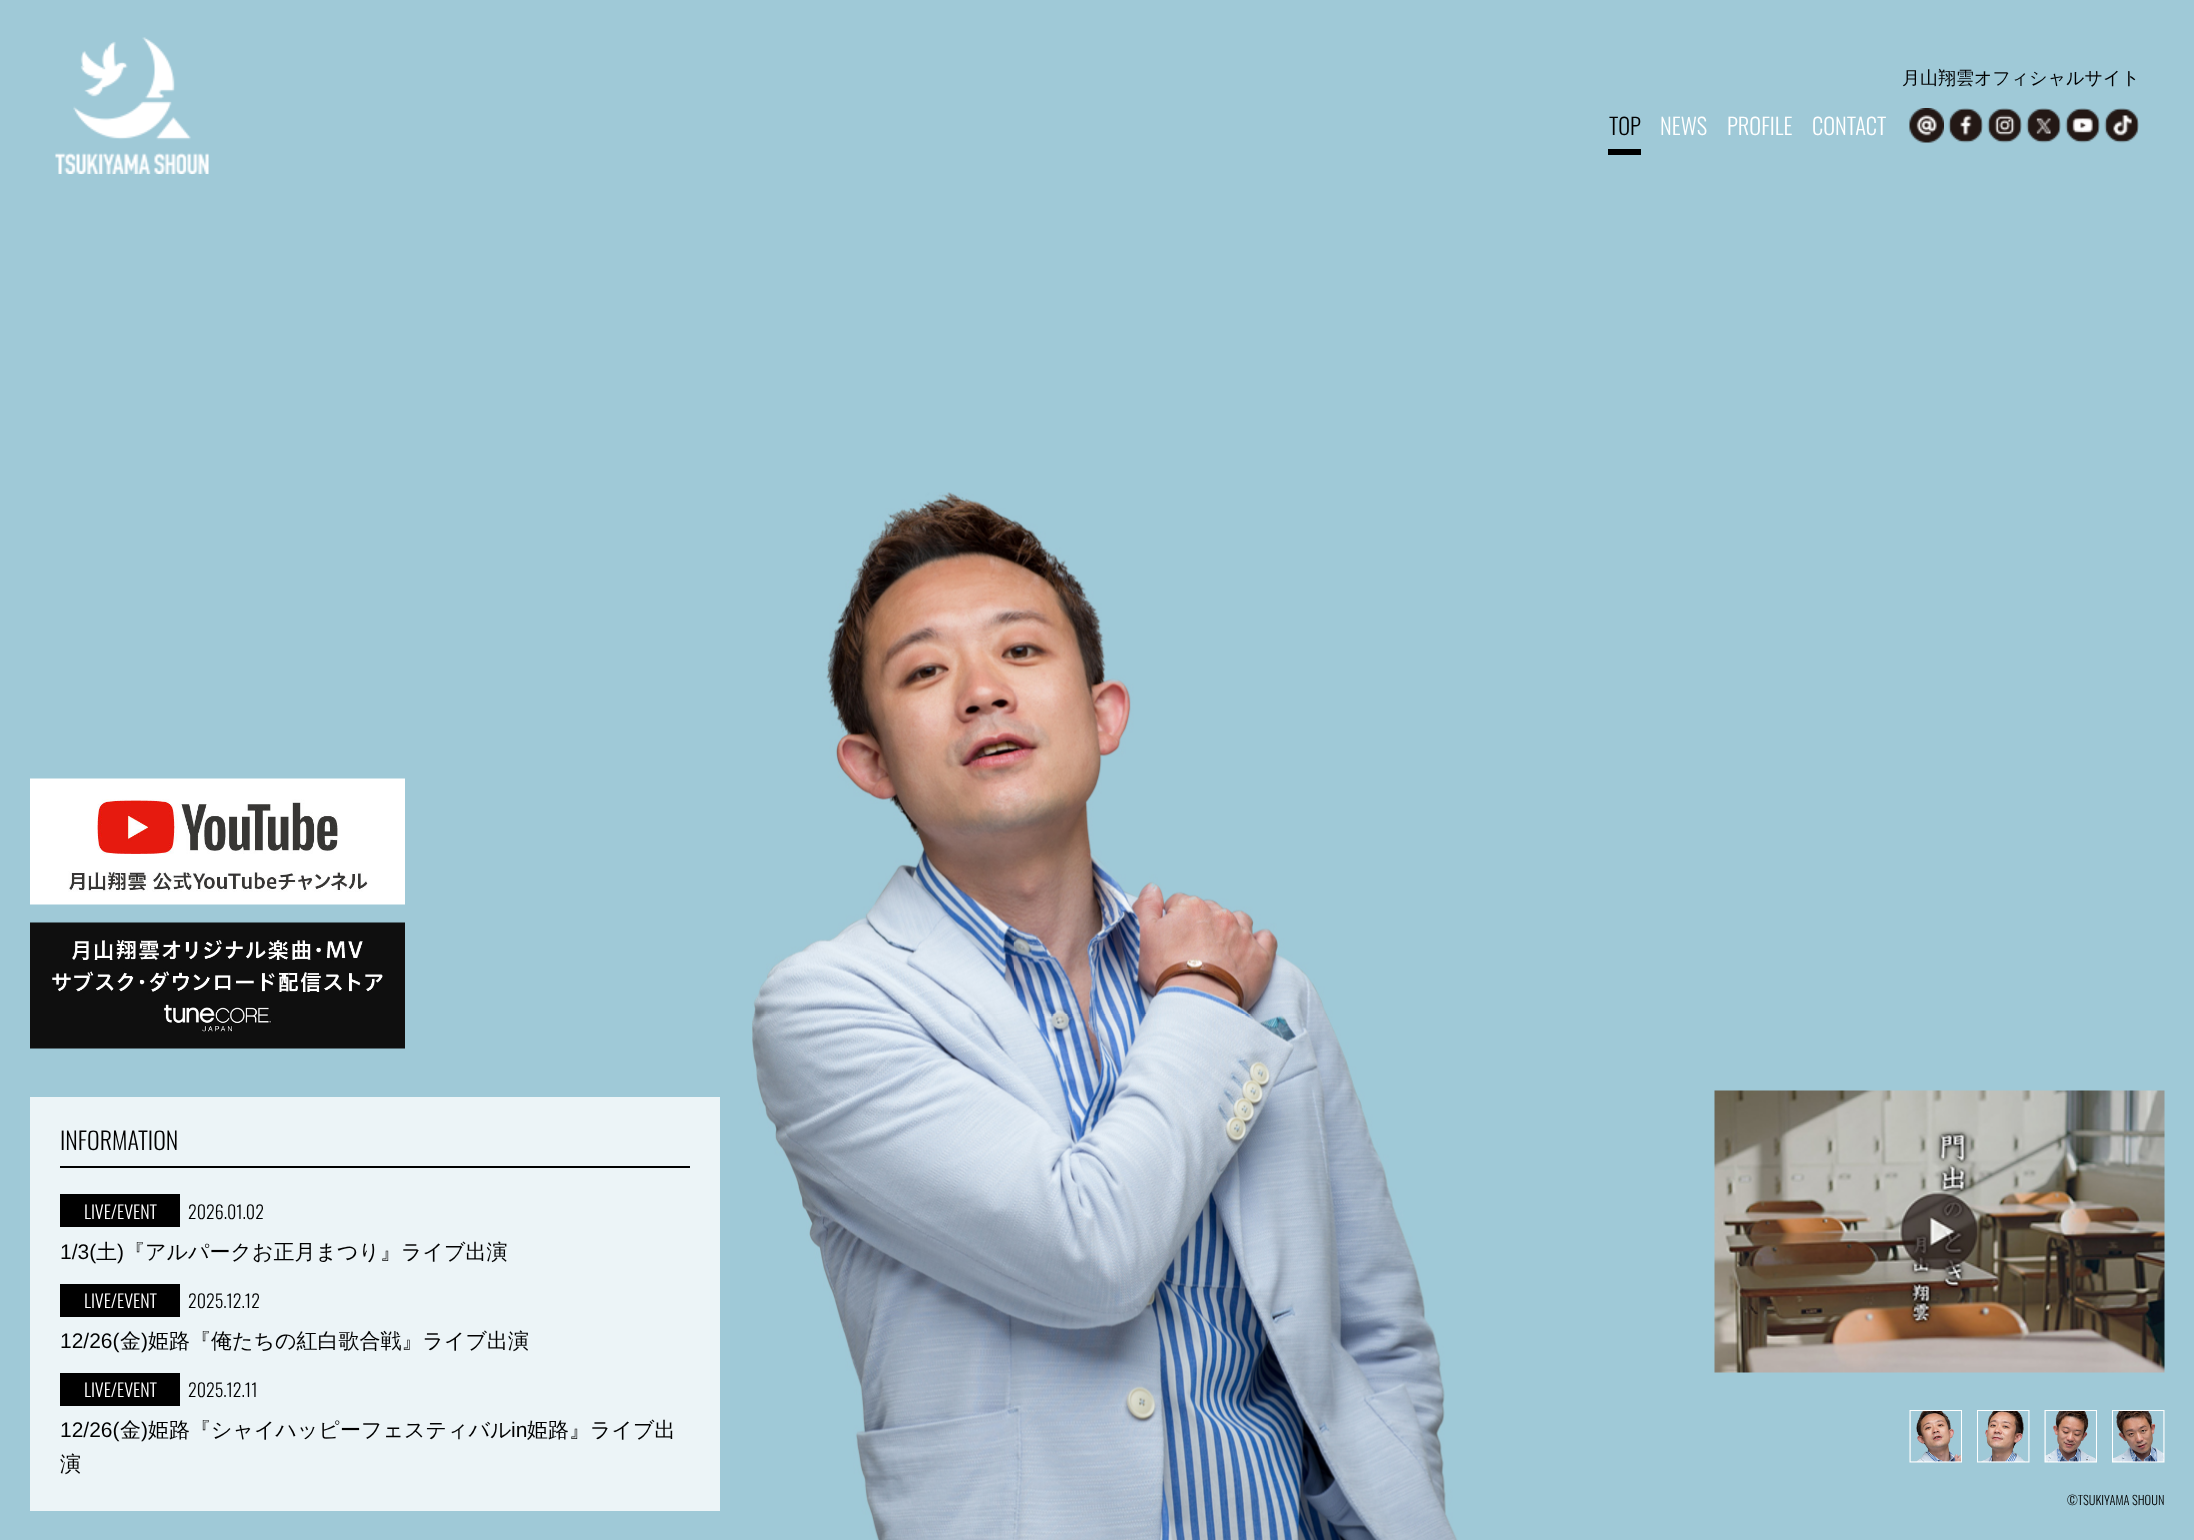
<?xml version="1.0" encoding="UTF-8"?>
<svg xmlns="http://www.w3.org/2000/svg" width="2194" height="1540">
    <rect width="100%" height="100%" fill="#9FC9D7"/>
    <image x="55" y="37" width="154" height="137" href="img_01.png"/>
    <text x="1902" y="84" font-family="WenQuanYi Zen Hei" font-size="18" font-weight="500" fill="#000000">月山翔雲オフィシャルサイト</text>
    <text x="1609" y="135" font-family="Oswald" font-size="22.5" font-weight="300" fill="#000000">TOP</text>
    <rect x="1608" y="149" width="33" height="6" fill="#000000"/>
    <text x="1660" y="135" font-family="Oswald" font-size="22.5" font-weight="300" fill="#FFFFFF">NEWS</text>
    <text x="1727" y="135" font-family="Oswald" font-size="22.5" font-weight="300" fill="#FFFFFF">PROFILE</text>
    <text x="1812" y="135" font-family="Oswald" font-size="22.5" font-weight="300" fill="#FFFFFF">CONTACT</text>
    <image x="1909" y="108" width="35" height="35" href="img_02.png"/>
    <image x="1948" y="108" width="35" height="35" href="img_03.png"/>
    <image x="1987" y="108" width="35" height="35" href="img_04.png"/>
    <image x="2026" y="108" width="35" height="35" href="img_05.png"/>
    <image x="2065" y="108" width="35" height="35" href="img_06.png"/>
    <image x="2104" y="108" width="35" height="35" href="img_07.png"/>
    <image x="30" y="778" width="375" height="127" href="img_08.png"/>
    <image x="30" y="922" width="375" height="127" href="img_09.png"/>
    <rect x="30" y="1097" width="690" height="414" fill="#ECF4F7"/>
    <rect x="60" y="1166" width="630" height="2" fill="#000000"/>
    <text x="60" y="1150" font-family="Oswald" font-size="24" font-weight="300" fill="#000000">INFORMATION</text>
    <rect x="60" y="1194" width="120" height="33" fill="#000000"/>
    <text x="84" y="1219" font-family="Oswald" font-size="18" font-weight="300" fill="#FFFFFF">LIVE/EVENT</text>
    <text x="188" y="1219" font-family="Oswald" font-size="18" font-weight="300" fill="#000000">2026.01.02</text>
    <text x="60" y="1259" font-family="Liberation Sans" font-size="21" fill="#000000">1/3(</text>
    <text x="96" y="1259" font-family="WenQuanYi Zen Hei" font-size="21" font-weight="500" fill="#000000">土</text>
    <text x="117" y="1259" font-family="Liberation Sans" font-size="21" fill="#000000">)</text>
    <text x="124" y="1259" font-family="WenQuanYi Zen Hei" font-size="21" font-weight="500" fill="#000000">『アルパークお正月まつり』ライブ出演</text>
    <rect x="60" y="1284" width="120" height="33" fill="#000000"/>
    <text x="84" y="1308" font-family="Oswald" font-size="18" font-weight="300" fill="#FFFFFF">LIVE/EVENT</text>
    <text x="188" y="1308" font-family="Oswald" font-size="18" font-weight="300" fill="#000000">2025.12.12</text>
    <text x="60" y="1348" font-family="Liberation Sans" font-size="21" fill="#000000">12/26(</text>
    <text x="120" y="1348" font-family="WenQuanYi Zen Hei" font-size="21" font-weight="500" fill="#000000">金</text>
    <text x="141" y="1348" font-family="Liberation Sans" font-size="21" fill="#000000">)</text>
    <text x="148" y="1348" font-family="WenQuanYi Zen Hei" font-size="21" font-weight="500" fill="#000000">姫路『俺たちの紅白歌合戦』ライブ出演</text>
    <rect x="60" y="1373" width="120" height="33" fill="#000000"/>
    <text x="84" y="1397" font-family="Oswald" font-size="18" font-weight="300" fill="#FFFFFF">LIVE/EVENT</text>
    <text x="188" y="1397" font-family="Oswald" font-size="18" font-weight="300" fill="#000000">2025.12.11</text>
    <text x="60" y="1437" font-family="Liberation Sans" font-size="21" fill="#000000">12/26(</text>
    <text x="120" y="1437" font-family="WenQuanYi Zen Hei" font-size="21" font-weight="500" fill="#000000">金</text>
    <text x="141" y="1437" font-family="Liberation Sans" font-size="21" fill="#000000">)</text>
    <text x="148" y="1437" font-family="WenQuanYi Zen Hei" font-size="21" font-weight="500" fill="#000000">姫路『シャイハッピーフェスティバル</text>
    <text x="511" y="1437" font-family="Liberation Sans" font-size="21" fill="#000000">in</text>
    <text x="527" y="1437" font-family="WenQuanYi Zen Hei" font-size="21" font-weight="500" fill="#000000">姫路』ライブ出</text>
    <text x="60" y="1471" font-family="WenQuanYi Zen Hei" font-size="21" font-weight="500" fill="#000000">演</text>
    <image x="752" y="492" width="706" height="1048" href="img_10.png"/>
    <image x="1714" y="1090" width="451" height="283" href="img_11.png"/>
    <image x="1909" y="1410" width="53" height="53" href="img_12.png"/>
    <image x="1977" y="1410" width="53" height="53" href="img_13.png"/>
    <image x="2044" y="1410" width="53" height="53" href="img_14.png"/>
    <image x="2112" y="1410" width="53" height="53" href="img_15.png"/>
    <text x="2067" y="1505" font-family="Oswald" font-size="12.5" font-weight="300" fill="#000000">©TSUKIYAMA SHOUN</text>
</svg>
